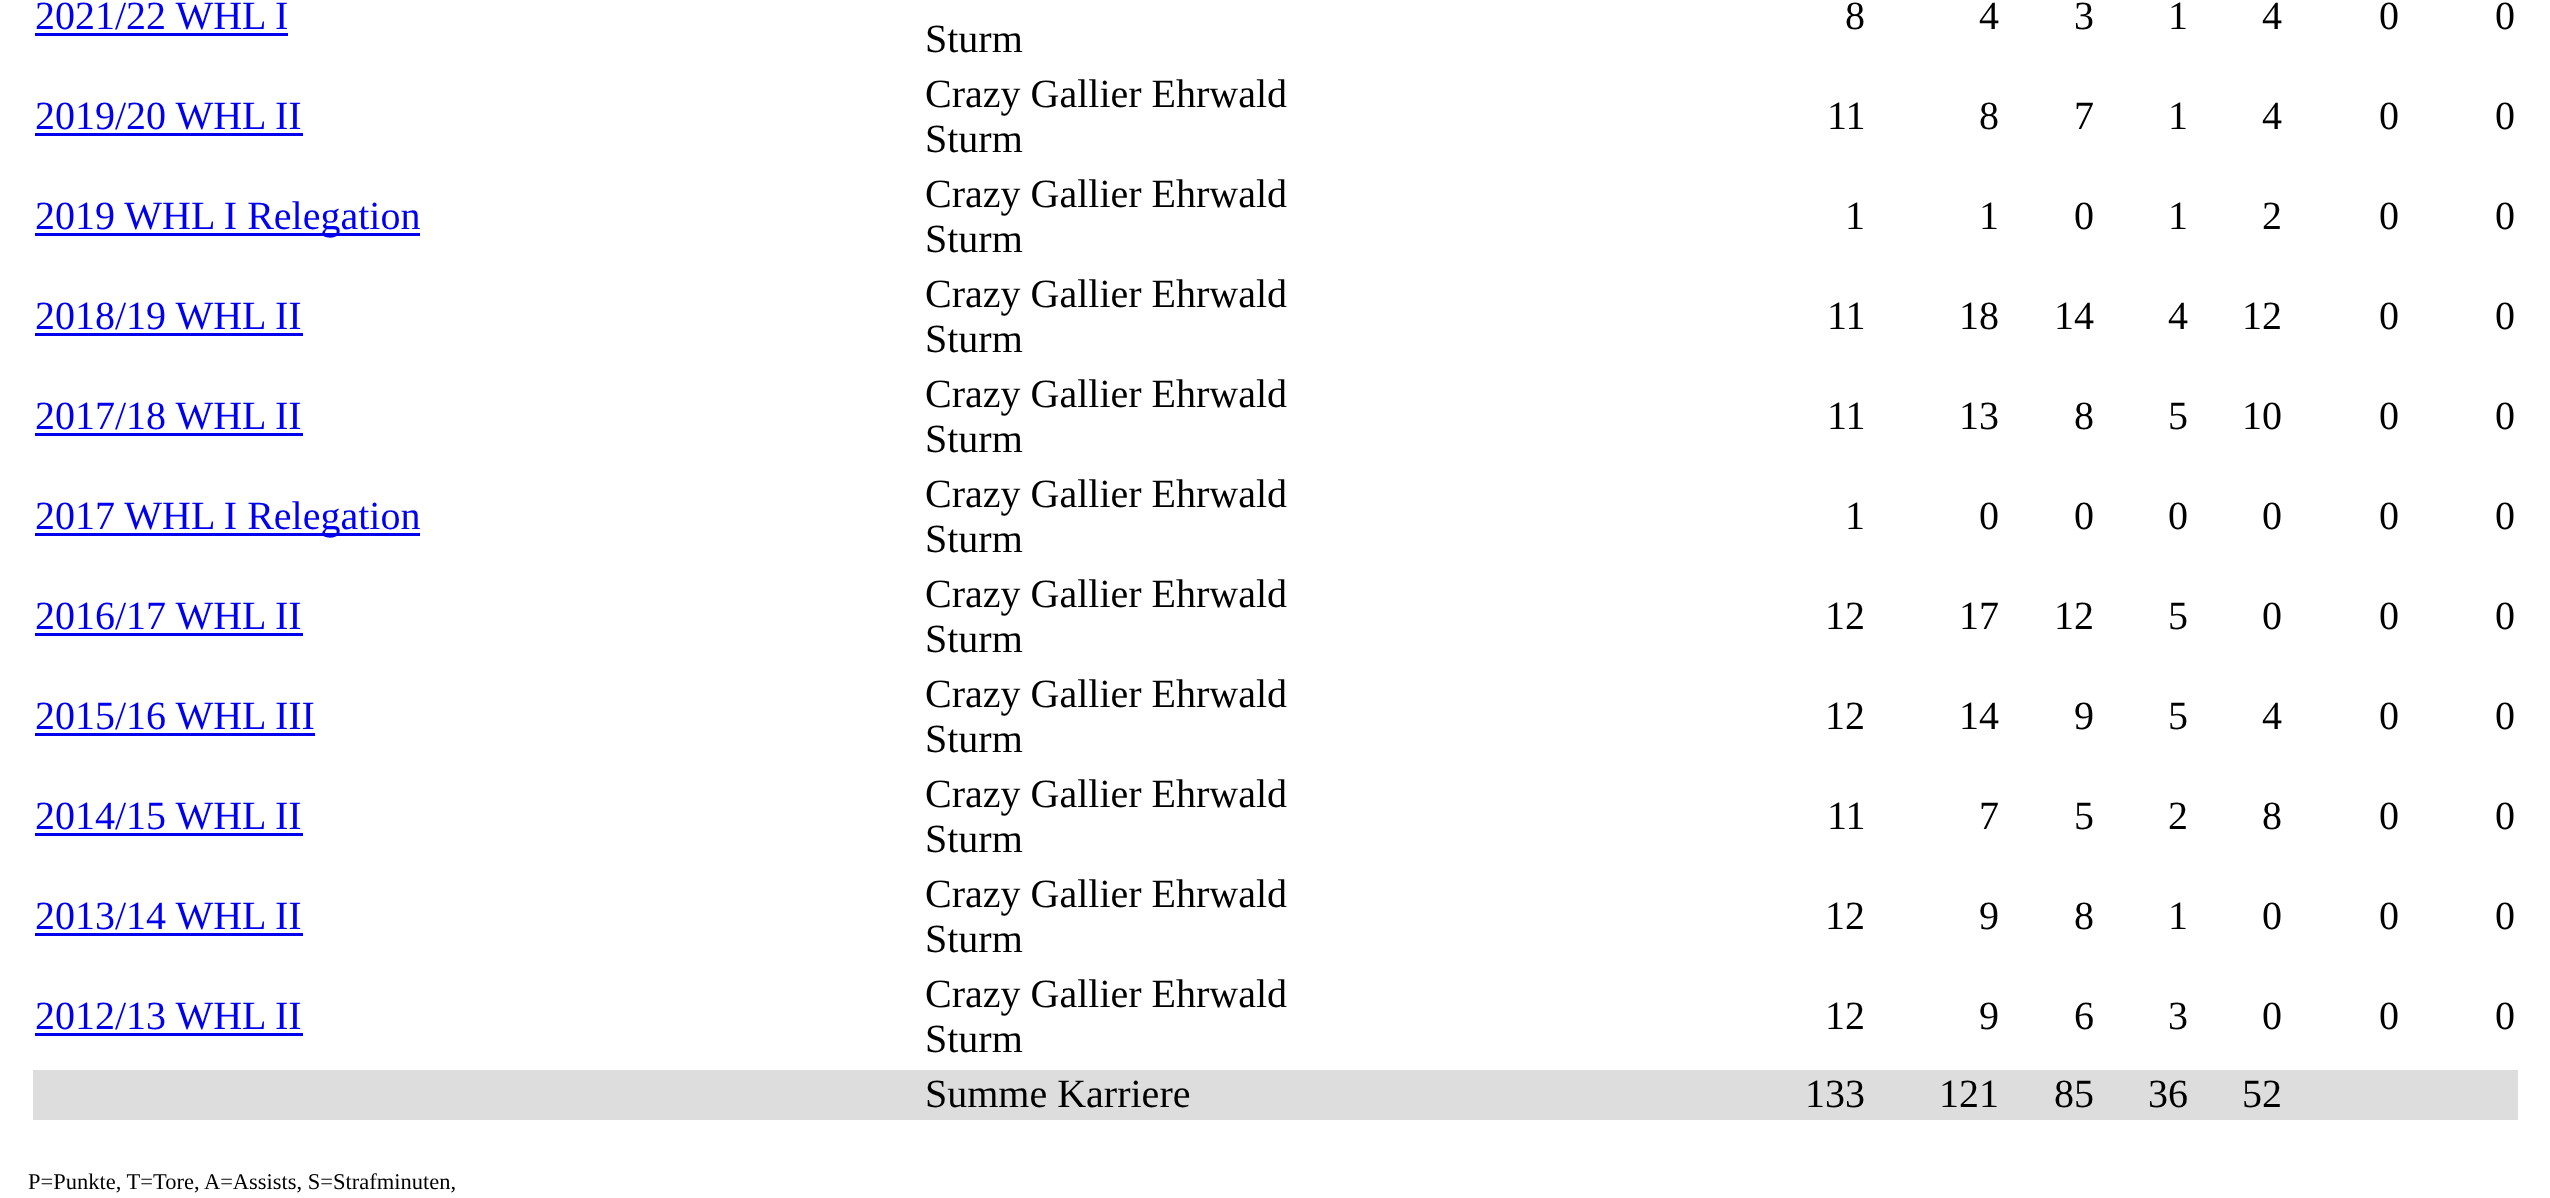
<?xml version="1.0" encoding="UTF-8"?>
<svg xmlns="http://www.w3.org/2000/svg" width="2550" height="1198">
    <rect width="100%" height="100%" fill="#FFFFFF"/>
    <text x="35" y="29" font-family="Liberation Serif" font-size="40" fill="#0000EE">2021/22 WHL I</text>
    <rect x="35" y="33" width="253" height="3" fill="#0000EE"/>
    <text x="1845" y="29" font-family="Liberation Serif" font-size="40" fill="#000000">8</text>
    <text x="1979" y="29" font-family="Liberation Serif" font-size="40" fill="#000000">4</text>
    <text x="2074" y="29" font-family="Liberation Serif" font-size="40" fill="#000000">3</text>
    <text x="2168" y="29" font-family="Liberation Serif" font-size="40" fill="#000000">1</text>
    <text x="2262" y="29" font-family="Liberation Serif" font-size="40" fill="#000000">4</text>
    <text x="2379" y="29" font-family="Liberation Serif" font-size="40" fill="#000000">0</text>
    <text x="2495" y="29" font-family="Liberation Serif" font-size="40" fill="#000000">0</text>
    <text x="925" y="52" font-family="Liberation Serif" font-size="40" fill="#000000">Sturm</text>
    <text x="35" y="129" font-family="Liberation Serif" font-size="40" fill="#0000EE">2019/20 WHL II</text>
    <rect x="35" y="133" width="268" height="3" fill="#0000EE"/>
    <text font-family="Liberation Serif" font-size="40" fill="#000000">
        <tspan x="925" y="107">Crazy Gallier Ehrwald</tspan>
        <tspan x="925" y="152">Sturm</tspan>
    </text>
    <text x="1827" y="129" font-family="Liberation Serif" font-size="40" fill="#000000">11</text>
    <text x="1979" y="129" font-family="Liberation Serif" font-size="40" fill="#000000">8</text>
    <text x="2074" y="129" font-family="Liberation Serif" font-size="40" fill="#000000">7</text>
    <text x="2168" y="129" font-family="Liberation Serif" font-size="40" fill="#000000">1</text>
    <text x="2262" y="129" font-family="Liberation Serif" font-size="40" fill="#000000">4</text>
    <text x="2379" y="129" font-family="Liberation Serif" font-size="40" fill="#000000">0</text>
    <text x="2495" y="129" font-family="Liberation Serif" font-size="40" fill="#000000">0</text>
    <rect x="35" y="233" width="385" height="3" fill="#0000EE"/>
    <text x="35" y="229" font-family="Liberation Serif" font-size="40" fill="#0000EE">2019 WHL I Relegation</text>
    <text font-family="Liberation Serif" font-size="40" fill="#000000">
        <tspan x="925" y="207">Crazy Gallier Ehrwald</tspan>
        <tspan x="925" y="252">Sturm</tspan>
    </text>
    <text x="1845" y="229" font-family="Liberation Serif" font-size="40" fill="#000000">1</text>
    <text x="1979" y="229" font-family="Liberation Serif" font-size="40" fill="#000000">1</text>
    <text x="2074" y="229" font-family="Liberation Serif" font-size="40" fill="#000000">0</text>
    <text x="2168" y="229" font-family="Liberation Serif" font-size="40" fill="#000000">1</text>
    <text x="2262" y="229" font-family="Liberation Serif" font-size="40" fill="#000000">2</text>
    <text x="2379" y="229" font-family="Liberation Serif" font-size="40" fill="#000000">0</text>
    <text x="2495" y="229" font-family="Liberation Serif" font-size="40" fill="#000000">0</text>
    <text x="35" y="329" font-family="Liberation Serif" font-size="40" fill="#0000EE">2018/19 WHL II</text>
    <rect x="35" y="333" width="268" height="3" fill="#0000EE"/>
    <text font-family="Liberation Serif" font-size="40" fill="#000000">
        <tspan x="925" y="307">Crazy Gallier Ehrwald</tspan>
        <tspan x="925" y="352">Sturm</tspan>
    </text>
    <text x="1827" y="329" font-family="Liberation Serif" font-size="40" fill="#000000">11</text>
    <text x="1959" y="329" font-family="Liberation Serif" font-size="40" fill="#000000">18</text>
    <text x="2054" y="329" font-family="Liberation Serif" font-size="40" fill="#000000">14</text>
    <text x="2168" y="329" font-family="Liberation Serif" font-size="40" fill="#000000">4</text>
    <text x="2242" y="329" font-family="Liberation Serif" font-size="40" fill="#000000">12</text>
    <text x="2379" y="329" font-family="Liberation Serif" font-size="40" fill="#000000">0</text>
    <text x="2495" y="329" font-family="Liberation Serif" font-size="40" fill="#000000">0</text>
    <text x="35" y="429" font-family="Liberation Serif" font-size="40" fill="#0000EE">2017/18 WHL II</text>
    <rect x="35" y="433" width="268" height="3" fill="#0000EE"/>
    <text font-family="Liberation Serif" font-size="40" fill="#000000">
        <tspan x="925" y="407">Crazy Gallier Ehrwald</tspan>
        <tspan x="925" y="452">Sturm</tspan>
    </text>
    <text x="1827" y="429" font-family="Liberation Serif" font-size="40" fill="#000000">11</text>
    <text x="1959" y="429" font-family="Liberation Serif" font-size="40" fill="#000000">13</text>
    <text x="2074" y="429" font-family="Liberation Serif" font-size="40" fill="#000000">8</text>
    <text x="2168" y="429" font-family="Liberation Serif" font-size="40" fill="#000000">5</text>
    <text x="2242" y="429" font-family="Liberation Serif" font-size="40" fill="#000000">10</text>
    <text x="2379" y="429" font-family="Liberation Serif" font-size="40" fill="#000000">0</text>
    <text x="2495" y="429" font-family="Liberation Serif" font-size="40" fill="#000000">0</text>
    <rect x="35" y="533" width="385" height="3" fill="#0000EE"/>
    <text x="35" y="529" font-family="Liberation Serif" font-size="40" fill="#0000EE">2017 WHL I Relegation</text>
    <text font-family="Liberation Serif" font-size="40" fill="#000000">
        <tspan x="925" y="507">Crazy Gallier Ehrwald</tspan>
        <tspan x="925" y="552">Sturm</tspan>
    </text>
    <text x="1845" y="529" font-family="Liberation Serif" font-size="40" fill="#000000">1</text>
    <text x="1979" y="529" font-family="Liberation Serif" font-size="40" fill="#000000">0</text>
    <text x="2074" y="529" font-family="Liberation Serif" font-size="40" fill="#000000">0</text>
    <text x="2168" y="529" font-family="Liberation Serif" font-size="40" fill="#000000">0</text>
    <text x="2262" y="529" font-family="Liberation Serif" font-size="40" fill="#000000">0</text>
    <text x="2379" y="529" font-family="Liberation Serif" font-size="40" fill="#000000">0</text>
    <text x="2495" y="529" font-family="Liberation Serif" font-size="40" fill="#000000">0</text>
    <text x="35" y="629" font-family="Liberation Serif" font-size="40" fill="#0000EE">2016/17 WHL II</text>
    <rect x="35" y="633" width="268" height="3" fill="#0000EE"/>
    <text font-family="Liberation Serif" font-size="40" fill="#000000">
        <tspan x="925" y="607">Crazy Gallier Ehrwald</tspan>
        <tspan x="925" y="652">Sturm</tspan>
    </text>
    <text x="1825" y="629" font-family="Liberation Serif" font-size="40" fill="#000000">12</text>
    <text x="1959" y="629" font-family="Liberation Serif" font-size="40" fill="#000000">17</text>
    <text x="2054" y="629" font-family="Liberation Serif" font-size="40" fill="#000000">12</text>
    <text x="2168" y="629" font-family="Liberation Serif" font-size="40" fill="#000000">5</text>
    <text x="2262" y="629" font-family="Liberation Serif" font-size="40" fill="#000000">0</text>
    <text x="2379" y="629" font-family="Liberation Serif" font-size="40" fill="#000000">0</text>
    <text x="2495" y="629" font-family="Liberation Serif" font-size="40" fill="#000000">0</text>
    <text x="35" y="729" font-family="Liberation Serif" font-size="40" fill="#0000EE">2015/16 WHL III</text>
    <rect x="35" y="733" width="280" height="3" fill="#0000EE"/>
    <text font-family="Liberation Serif" font-size="40" fill="#000000">
        <tspan x="925" y="707">Crazy Gallier Ehrwald</tspan>
        <tspan x="925" y="752">Sturm</tspan>
    </text>
    <text x="1825" y="729" font-family="Liberation Serif" font-size="40" fill="#000000">12</text>
    <text x="1959" y="729" font-family="Liberation Serif" font-size="40" fill="#000000">14</text>
    <text x="2074" y="729" font-family="Liberation Serif" font-size="40" fill="#000000">9</text>
    <text x="2168" y="729" font-family="Liberation Serif" font-size="40" fill="#000000">5</text>
    <text x="2262" y="729" font-family="Liberation Serif" font-size="40" fill="#000000">4</text>
    <text x="2379" y="729" font-family="Liberation Serif" font-size="40" fill="#000000">0</text>
    <text x="2495" y="729" font-family="Liberation Serif" font-size="40" fill="#000000">0</text>
    <text x="35" y="829" font-family="Liberation Serif" font-size="40" fill="#0000EE">2014/15 WHL II</text>
    <rect x="35" y="833" width="268" height="3" fill="#0000EE"/>
    <text font-family="Liberation Serif" font-size="40" fill="#000000">
        <tspan x="925" y="807">Crazy Gallier Ehrwald</tspan>
        <tspan x="925" y="852">Sturm</tspan>
    </text>
    <text x="1827" y="829" font-family="Liberation Serif" font-size="40" fill="#000000">11</text>
    <text x="1979" y="829" font-family="Liberation Serif" font-size="40" fill="#000000">7</text>
    <text x="2074" y="829" font-family="Liberation Serif" font-size="40" fill="#000000">5</text>
    <text x="2168" y="829" font-family="Liberation Serif" font-size="40" fill="#000000">2</text>
    <text x="2262" y="829" font-family="Liberation Serif" font-size="40" fill="#000000">8</text>
    <text x="2379" y="829" font-family="Liberation Serif" font-size="40" fill="#000000">0</text>
    <text x="2495" y="829" font-family="Liberation Serif" font-size="40" fill="#000000">0</text>
    <text x="35" y="929" font-family="Liberation Serif" font-size="40" fill="#0000EE">2013/14 WHL II</text>
    <rect x="35" y="933" width="268" height="3" fill="#0000EE"/>
    <text font-family="Liberation Serif" font-size="40" fill="#000000">
        <tspan x="925" y="907">Crazy Gallier Ehrwald</tspan>
        <tspan x="925" y="952">Sturm</tspan>
    </text>
    <text x="1825" y="929" font-family="Liberation Serif" font-size="40" fill="#000000">12</text>
    <text x="1979" y="929" font-family="Liberation Serif" font-size="40" fill="#000000">9</text>
    <text x="2074" y="929" font-family="Liberation Serif" font-size="40" fill="#000000">8</text>
    <text x="2168" y="929" font-family="Liberation Serif" font-size="40" fill="#000000">1</text>
    <text x="2262" y="929" font-family="Liberation Serif" font-size="40" fill="#000000">0</text>
    <text x="2379" y="929" font-family="Liberation Serif" font-size="40" fill="#000000">0</text>
    <text x="2495" y="929" font-family="Liberation Serif" font-size="40" fill="#000000">0</text>
    <text x="35" y="1029" font-family="Liberation Serif" font-size="40" fill="#0000EE">2012/13 WHL II</text>
    <rect x="35" y="1033" width="268" height="3" fill="#0000EE"/>
    <text font-family="Liberation Serif" font-size="40" fill="#000000">
        <tspan x="925" y="1007">Crazy Gallier Ehrwald</tspan>
        <tspan x="925" y="1052">Sturm</tspan>
    </text>
    <text x="1825" y="1029" font-family="Liberation Serif" font-size="40" fill="#000000">12</text>
    <text x="1979" y="1029" font-family="Liberation Serif" font-size="40" fill="#000000">9</text>
    <text x="2074" y="1029" font-family="Liberation Serif" font-size="40" fill="#000000">6</text>
    <text x="2168" y="1029" font-family="Liberation Serif" font-size="40" fill="#000000">3</text>
    <text x="2262" y="1029" font-family="Liberation Serif" font-size="40" fill="#000000">0</text>
    <text x="2379" y="1029" font-family="Liberation Serif" font-size="40" fill="#000000">0</text>
    <text x="2495" y="1029" font-family="Liberation Serif" font-size="40" fill="#000000">0</text>
    <rect x="33" y="1070" width="2485" height="50" fill="#DDDDDD"/>
    <text x="925" y="1107" font-family="Liberation Serif" font-size="40" fill="#000000">Summe Karriere</text>
    <text x="1805" y="1107" font-family="Liberation Serif" font-size="40" fill="#000000">133</text>
    <text x="1939" y="1107" font-family="Liberation Serif" font-size="40" fill="#000000">121</text>
    <text x="2054" y="1107" font-family="Liberation Serif" font-size="40" fill="#000000">85</text>
    <text x="2148" y="1107" font-family="Liberation Serif" font-size="40" fill="#000000">36</text>
    <text x="2242" y="1107" font-family="Liberation Serif" font-size="40" fill="#000000">52</text>
    <text x="28" y="1189" font-family="Liberation Serif" font-size="22.5" fill="#000000">P=Punkte, T=Tore, A=Assists, S=Strafminuten,</text>
</svg>
